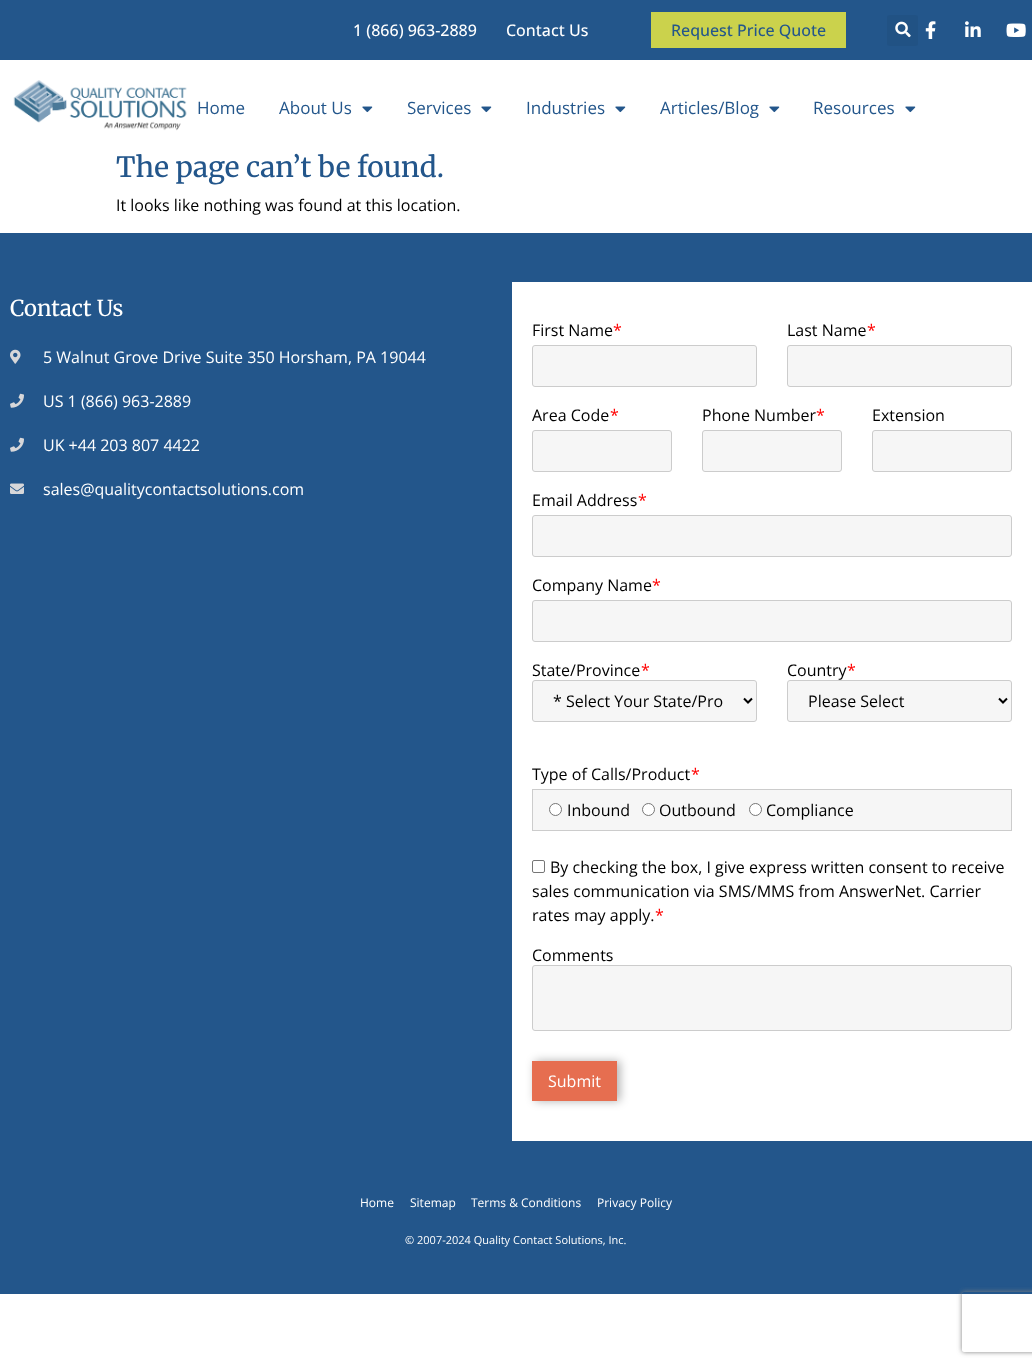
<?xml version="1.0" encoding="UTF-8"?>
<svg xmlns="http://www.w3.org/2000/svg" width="1032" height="1366">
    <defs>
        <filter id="blur1" x="-50%" y="-200%" width="200%" height="500%"><feGaussianBlur stdDeviation="5"/></filter>
        <clipPath id="clip1"><path d="M 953 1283 H 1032 V 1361 H 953 Z M 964 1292 H 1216 C 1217 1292 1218 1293 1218 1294 V 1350 C 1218 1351 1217 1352 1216 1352 H 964 C 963 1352 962 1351 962 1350 V 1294 C 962 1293 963 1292 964 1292 Z" clip-rule="evenodd"/></clipPath>
        <filter id="blur2" x="-50%" y="-200%" width="200%" height="500%"><feGaussianBlur stdDeviation="2.5"/></filter>
    </defs>
    <rect width="100%" height="100%" fill="#FFFFFF"/>
    <rect x="0" y="0" width="1032" height="60" fill="#23568B"/>
    <text x="353" y="36" font-family="Open Sans" font-size="16" font-weight="500" fill="#FFFFFF">1 (866) 963-2889</text>
    <text x="506" y="36" font-family="Open Sans" font-size="16" font-weight="500" fill="#FFFFFF">Contact Us</text>
    <rect x="651" y="12" width="195" height="36" fill="#CBD24C"/>
    <text x="671" y="36" font-family="Open Sans" font-size="16" font-weight="500" fill="#23568B">Request Price Quote</text>
    <rect x="887" y="15" width="31" height="31" rx="3" fill="#215284"/>
    <image x="895" y="21" width="16" height="17" href="img_01.png"/>
    <image x="925" y="21" width="11" height="18" href="img_02.png"/>
    <image x="965" y="21" width="16" height="16" href="img_03.png"/>
    <image x="1006" y="23" width="20" height="14" href="img_04.png"/>
    <image x="13" y="80" width="174" height="51" href="img_05.png"/>
    <text x="197" y="114" font-family="Open Sans" font-size="17" fill="#23568B">Home</text>
    <text x="279" y="114" font-family="Open Sans" font-size="17" fill="#23568B">About Us</text>
    <image x="362" y="106" width="11" height="7" href="img_06.png"/>
    <text x="407" y="114" font-family="Open Sans" font-size="17" fill="#23568B">Services</text>
    <image x="481" y="106" width="11" height="7" href="img_06.png"/>
    <text x="526" y="114" font-family="Open Sans" font-size="17" fill="#23568B">Industries</text>
    <image x="615" y="106" width="11" height="7" href="img_06.png"/>
    <text x="660" y="114" font-family="Open Sans" font-size="17" fill="#23568B">Articles/Blog</text>
    <image x="769" y="106" width="11" height="7" href="img_06.png"/>
    <text x="813" y="114" font-family="Open Sans" font-size="17" fill="#23568B">Resources</text>
    <image x="905" y="106" width="11" height="7" href="img_06.png"/>
    <text x="116" y="177" font-family="Merriweather" font-size="28" font-weight="500" fill="#23568B">The page can’t be found.</text>
    <text x="116" y="211" font-family="Open Sans" font-size="16" fill="#000000">It looks like nothing was found at this location.</text>
    <rect x="0" y="233" width="1032" height="1061" fill="#23568B"/>
    <text x="10" y="316" font-family="Merriweather" font-size="22" fill="#FFFFFF">Contact Us</text>
    <image x="10" y="349" width="11" height="15" href="img_07.png"/>
    <text x="43" y="363" font-family="Open Sans" font-size="16" fill="#FFFFFF">5 Walnut Grove Drive Suite 350 Horsham, PA 19044</text>
    <image x="10" y="393" width="14" height="15" href="img_08.png"/>
    <text x="43" y="407" font-family="Open Sans" font-size="16" fill="#FFFFFF">US 1 (866) 963-2889</text>
    <image x="10" y="437" width="14" height="15" href="img_08.png"/>
    <text x="43" y="451" font-family="Open Sans" font-size="16" fill="#FFFFFF">UK +44 203 807 4422</text>
    <image x="10" y="483" width="14" height="11" href="img_09.png"/>
    <text x="43" y="495" font-family="Open Sans" font-size="16" fill="#FFFFFF">sales@qualitycontactsolutions.com</text>
    <rect x="512" y="282" width="520" height="859" fill="#FFFFFF"/>
    <text x="532" y="336" font-family="Open Sans" font-size="16" fill="#000000">First Name</text>
    <text x="613" y="336" font-family="Open Sans" font-size="16" fill="#FF0000">*</text>
    <rect x="532.5" y="345.5" width="224" height="41" rx="2.5" fill="#F6F6F6" stroke="#CCCCCC"/>
    <text x="787" y="336" font-family="Open Sans" font-size="16" fill="#000000">Last Name</text>
    <text x="867" y="336" font-family="Open Sans" font-size="16" fill="#FF0000">*</text>
    <rect x="787.5" y="345.5" width="224" height="41" rx="2.5" fill="#F6F6F6" stroke="#CCCCCC"/>
    <text x="532" y="421" font-family="Open Sans" font-size="16" fill="#000000">Area Code</text>
    <text x="610" y="421" font-family="Open Sans" font-size="16" fill="#FF0000">*</text>
    <rect x="532.5" y="430.5" width="139" height="41" rx="2.5" fill="#F6F6F6" stroke="#CCCCCC"/>
    <text x="702" y="421" font-family="Open Sans" font-size="16" fill="#000000">Phone Number</text>
    <text x="816" y="421" font-family="Open Sans" font-size="16" fill="#FF0000">*</text>
    <rect x="702.5" y="430.5" width="139" height="41" rx="2.5" fill="#F6F6F6" stroke="#CCCCCC"/>
    <text x="872" y="421" font-family="Open Sans" font-size="16" fill="#000000">Extension</text>
    <rect x="872.5" y="430.5" width="139" height="41" rx="2.5" fill="#F6F6F6" stroke="#CCCCCC"/>
    <text x="532" y="506" font-family="Open Sans" font-size="16" fill="#000000">Email Address</text>
    <text x="638" y="506" font-family="Open Sans" font-size="16" fill="#FF0000">*</text>
    <rect x="532.5" y="515.5" width="479" height="41" rx="2.5" fill="#F6F6F6" stroke="#CCCCCC"/>
    <text x="532" y="591" font-family="Open Sans" font-size="16" fill="#000000">Company Name</text>
    <text x="652" y="591" font-family="Open Sans" font-size="16" fill="#FF0000">*</text>
    <rect x="532.5" y="600.5" width="479" height="41" rx="2.5" fill="#F6F6F6" stroke="#CCCCCC"/>
    <text x="532" y="676" font-family="Open Sans" font-size="16" fill="#000000">State/Province</text>
    <text x="641" y="676" font-family="Open Sans" font-size="16" fill="#FF0000">*</text>
    <rect x="532.5" y="680.5" width="224" height="41" rx="2.5" fill="#F6F6F6" stroke="#CCCCCC"/>
    <path d="M 744 698.5 L 748 702.5 L 752 698.5" fill="none" stroke="#000000" stroke-width="2"/>
    <text x="553" y="707" font-family="Open Sans" font-size="16" fill="#000000">* Select Your State/Pro</text>
    <text x="787" y="676" font-family="Open Sans" font-size="16" fill="#000000">Country</text>
    <text x="847" y="676" font-family="Open Sans" font-size="16" fill="#FF0000">*</text>
    <rect x="787.5" y="680.5" width="224" height="41" rx="2.5" fill="#F6F6F6" stroke="#CCCCCC"/>
    <path d="M 999 698.5 L 1003 702.5 L 1007 698.5" fill="none" stroke="#000000" stroke-width="2"/>
    <text x="808" y="707" font-family="Open Sans" font-size="16" fill="#000000">Please Select</text>
    <text x="532" y="780" font-family="Open Sans" font-size="16" fill="#000000">Type of Calls/Product</text>
    <text x="691" y="780" font-family="Open Sans" font-size="16" fill="#FF0000">*</text>
    <rect x="532.5" y="789.5" width="479" height="41" fill="#F6F6F6" stroke="#CCCCCC"/>
    <circle cx="555.5" cy="809.5" r="6" fill="#FFFFFF" stroke="#767676"/>
    <text x="567" y="816" font-family="Open Sans" font-size="16" fill="#000000">Inbound</text>
    <circle cx="648.5" cy="809.5" r="6" fill="#FFFFFF" stroke="#767676"/>
    <text x="659" y="816" font-family="Open Sans" font-size="16" fill="#000000">Outbound</text>
    <circle cx="755.5" cy="809.5" r="6" fill="#FFFFFF" stroke="#767676"/>
    <text x="766" y="816" font-family="Open Sans" font-size="16" fill="#000000">Compliance</text>
    <rect x="532.5" y="860.5" width="12" height="12" rx="1.5" fill="none" stroke="#767676"/>
    <text x="550" y="873" font-family="Open Sans" font-size="16" fill="#000000">By checking the box, I give express written consent to receive</text>
    <text font-family="Open Sans" font-size="16" fill="#000000">
        <tspan x="532" y="897">sales communication via SMS/MMS from AnswerNet. Carrier</tspan>
        <tspan x="532" y="921">rates may apply.</tspan>
    </text>
    <text x="655" y="921" font-family="Open Sans" font-size="16" fill="#FF0000">*</text>
    <text x="532" y="961" font-family="Open Sans" font-size="16" fill="#000000">Comments</text>
    <rect x="532.5" y="965.5" width="479" height="65" rx="2.5" fill="#F6F6F6" stroke="#CCCCCC"/>
    <rect x="535" y="1061" width="85" height="40" fill="#000000" fill-opacity="0.31" filter="url(#blur1)"/>
    <rect x="532" y="1061" width="85" height="40" fill="#E66E50"/>
    <text x="548" y="1087" font-family="Open Sans" font-size="16" fill="#FFFFFF">Submit</text>
    <text x="360" y="1207" font-family="Open Sans" font-size="12" fill="#FFFFFF">Home</text>
    <text x="410" y="1207" font-family="Open Sans" font-size="12" fill="#FFFFFF">Sitemap</text>
    <text x="471" y="1207" font-family="Open Sans" font-size="12" fill="#FFFFFF">Terms &amp; Conditions</text>
    <text x="597" y="1207" font-family="Open Sans" font-size="12" fill="#FFFFFF">Privacy Policy</text>
    <text x="405" y="1244" font-family="Open Sans" font-size="11" fill="#FFFFFF">© 2007-2024 Quality Contact Solutions, Inc.</text>
    <g clip-path="url(#clip1)">
        <rect x="962" y="1292" width="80" height="60" rx="2" fill="#808080" filter="url(#blur2)"/>
    </g>
</svg>
